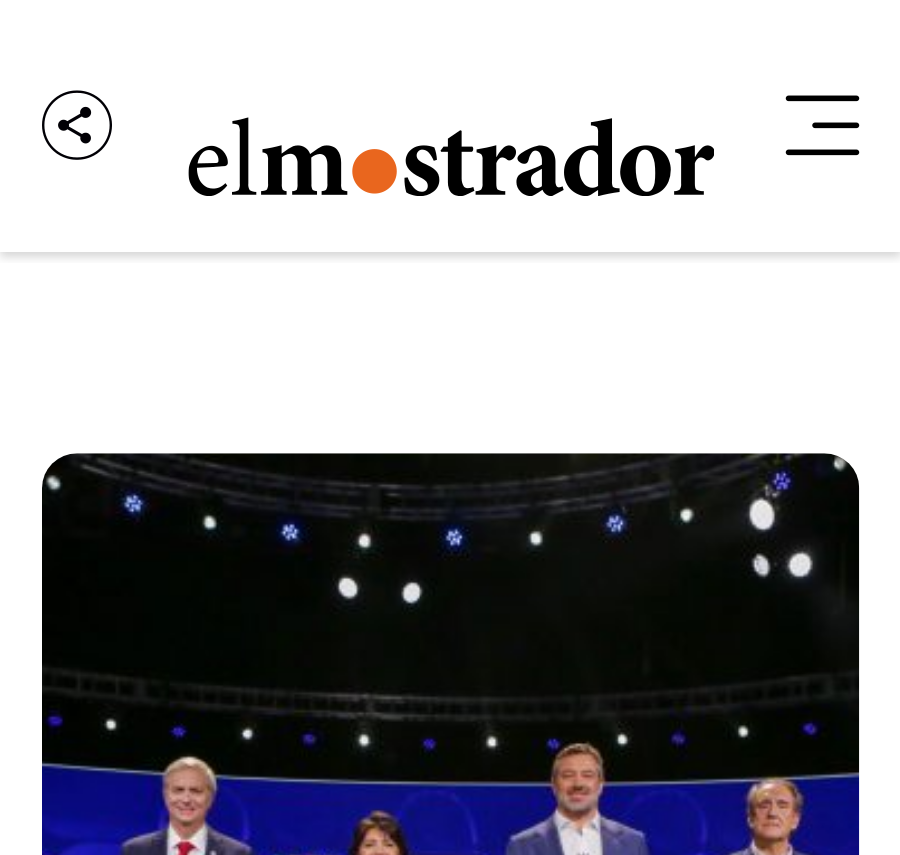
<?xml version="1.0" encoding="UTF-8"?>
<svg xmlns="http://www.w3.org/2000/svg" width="900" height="855">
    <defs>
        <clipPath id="clip1"><rect x="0" y="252" width="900" height="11"/></clipPath>
        <filter id="blur1" x="-50%" y="-200%" width="200%" height="500%"><feGaussianBlur stdDeviation="5"/></filter>
    </defs>
    <rect width="100%" height="100%" fill="#FFFFFF"/>
    <g clip-path="url(#clip1)">
        <rect x="0" y="5" width="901" height="252" fill="#000000" fill-opacity="0.16" filter="url(#blur1)"/>
    </g>
    <image x="42" y="90" width="70" height="70" href="img_01.png"/>
    <image x="188" y="117" width="526" height="79" href="img_02.png"/>
    <image x="785" y="95" width="75" height="61" href="img_03.png"/>
    <image x="42" y="453" width="818" height="402" href="img_04.png"/>
</svg>
